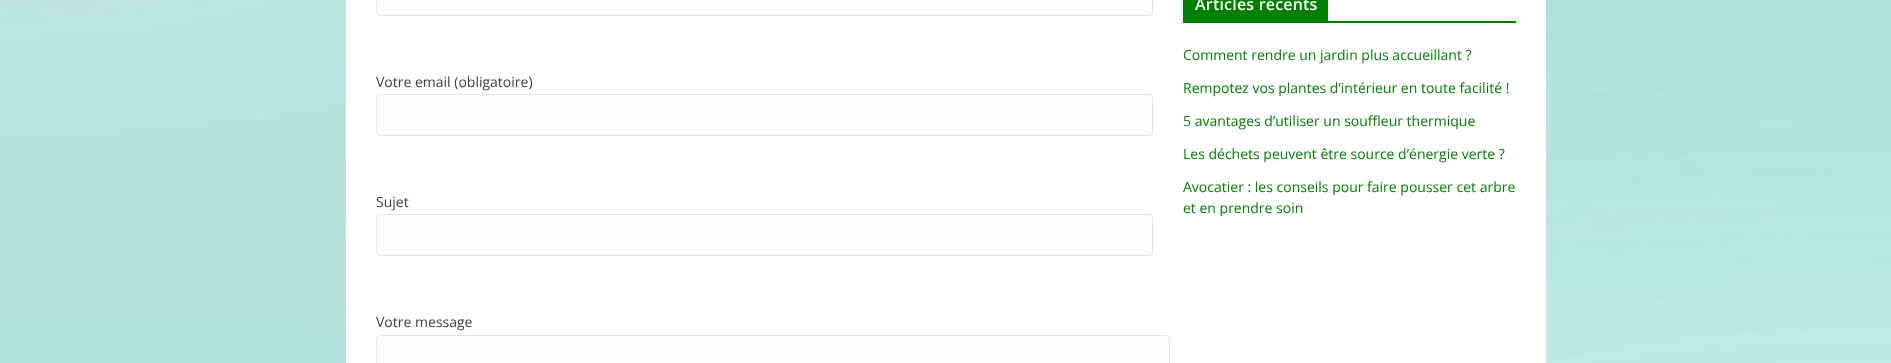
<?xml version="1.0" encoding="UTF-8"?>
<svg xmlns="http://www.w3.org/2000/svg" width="1891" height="363">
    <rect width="100%" height="100%" fill="#FFFFFF"/>
    <image x="0" y="0" width="1891" height="363" href="img_01.png"/>
    <rect x="346" y="0" width="1200" height="363" fill="#FFFFFF"/>
    <rect x="376.5" y="-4.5" width="776" height="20" rx="3.5" fill="#FCFCFC" stroke="#E4E4E7"/>
    <text x="376" y="87" font-family="Open Sans" font-size="14" fill="#3F3F46">Votre email (obligatoire)</text>
    <rect x="376.5" y="94.5" width="776" height="41" rx="3.5" fill="#FCFCFC" stroke="#E4E4E7"/>
    <text x="376" y="207" font-family="Open Sans" font-size="14" fill="#3F3F46">Sujet</text>
    <rect x="376.5" y="214.5" width="776" height="41" rx="3.5" fill="#FCFCFC" stroke="#E4E4E7"/>
    <text x="376" y="327" font-family="Open Sans" font-size="14" fill="#3F3F46">Votre message</text>
    <rect x="376.5" y="335.5" width="793" height="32" rx="3.5" fill="#FCFCFC" stroke="#E4E4E7"/>
    <rect x="1183" y="21" width="333" height="2" fill="#008000"/>
    <rect x="1183" y="0" width="145" height="21" fill="#008000"/>
    <text x="1195" y="10" font-family="Open Sans" font-size="16" font-weight="600" letter-spacing="0.2" fill="#FFFFFF">Articles récents</text>
    <text x="1183" y="60" font-family="Open Sans" font-size="14" fill="#008000">Comment rendre un jardin plus accueillant ?</text>
    <text x="1183" y="93" font-family="Open Sans" font-size="14" fill="#008000">Rempotez vos plantes d’intérieur en toute facilité !</text>
    <text x="1183" y="126" font-family="Open Sans" font-size="14" fill="#008000">5 avantages d’utiliser un souffleur thermique</text>
    <text x="1183" y="159" font-family="Open Sans" font-size="14" fill="#008000">Les déchets peuvent être source d’énergie verte ?</text>
    <text font-family="Open Sans" font-size="14" fill="#008000">
        <tspan x="1183" y="192">Avocatier : les conseils pour faire pousser cet arbre</tspan>
        <tspan x="1183" y="213">et en prendre soin</tspan>
    </text>
</svg>
